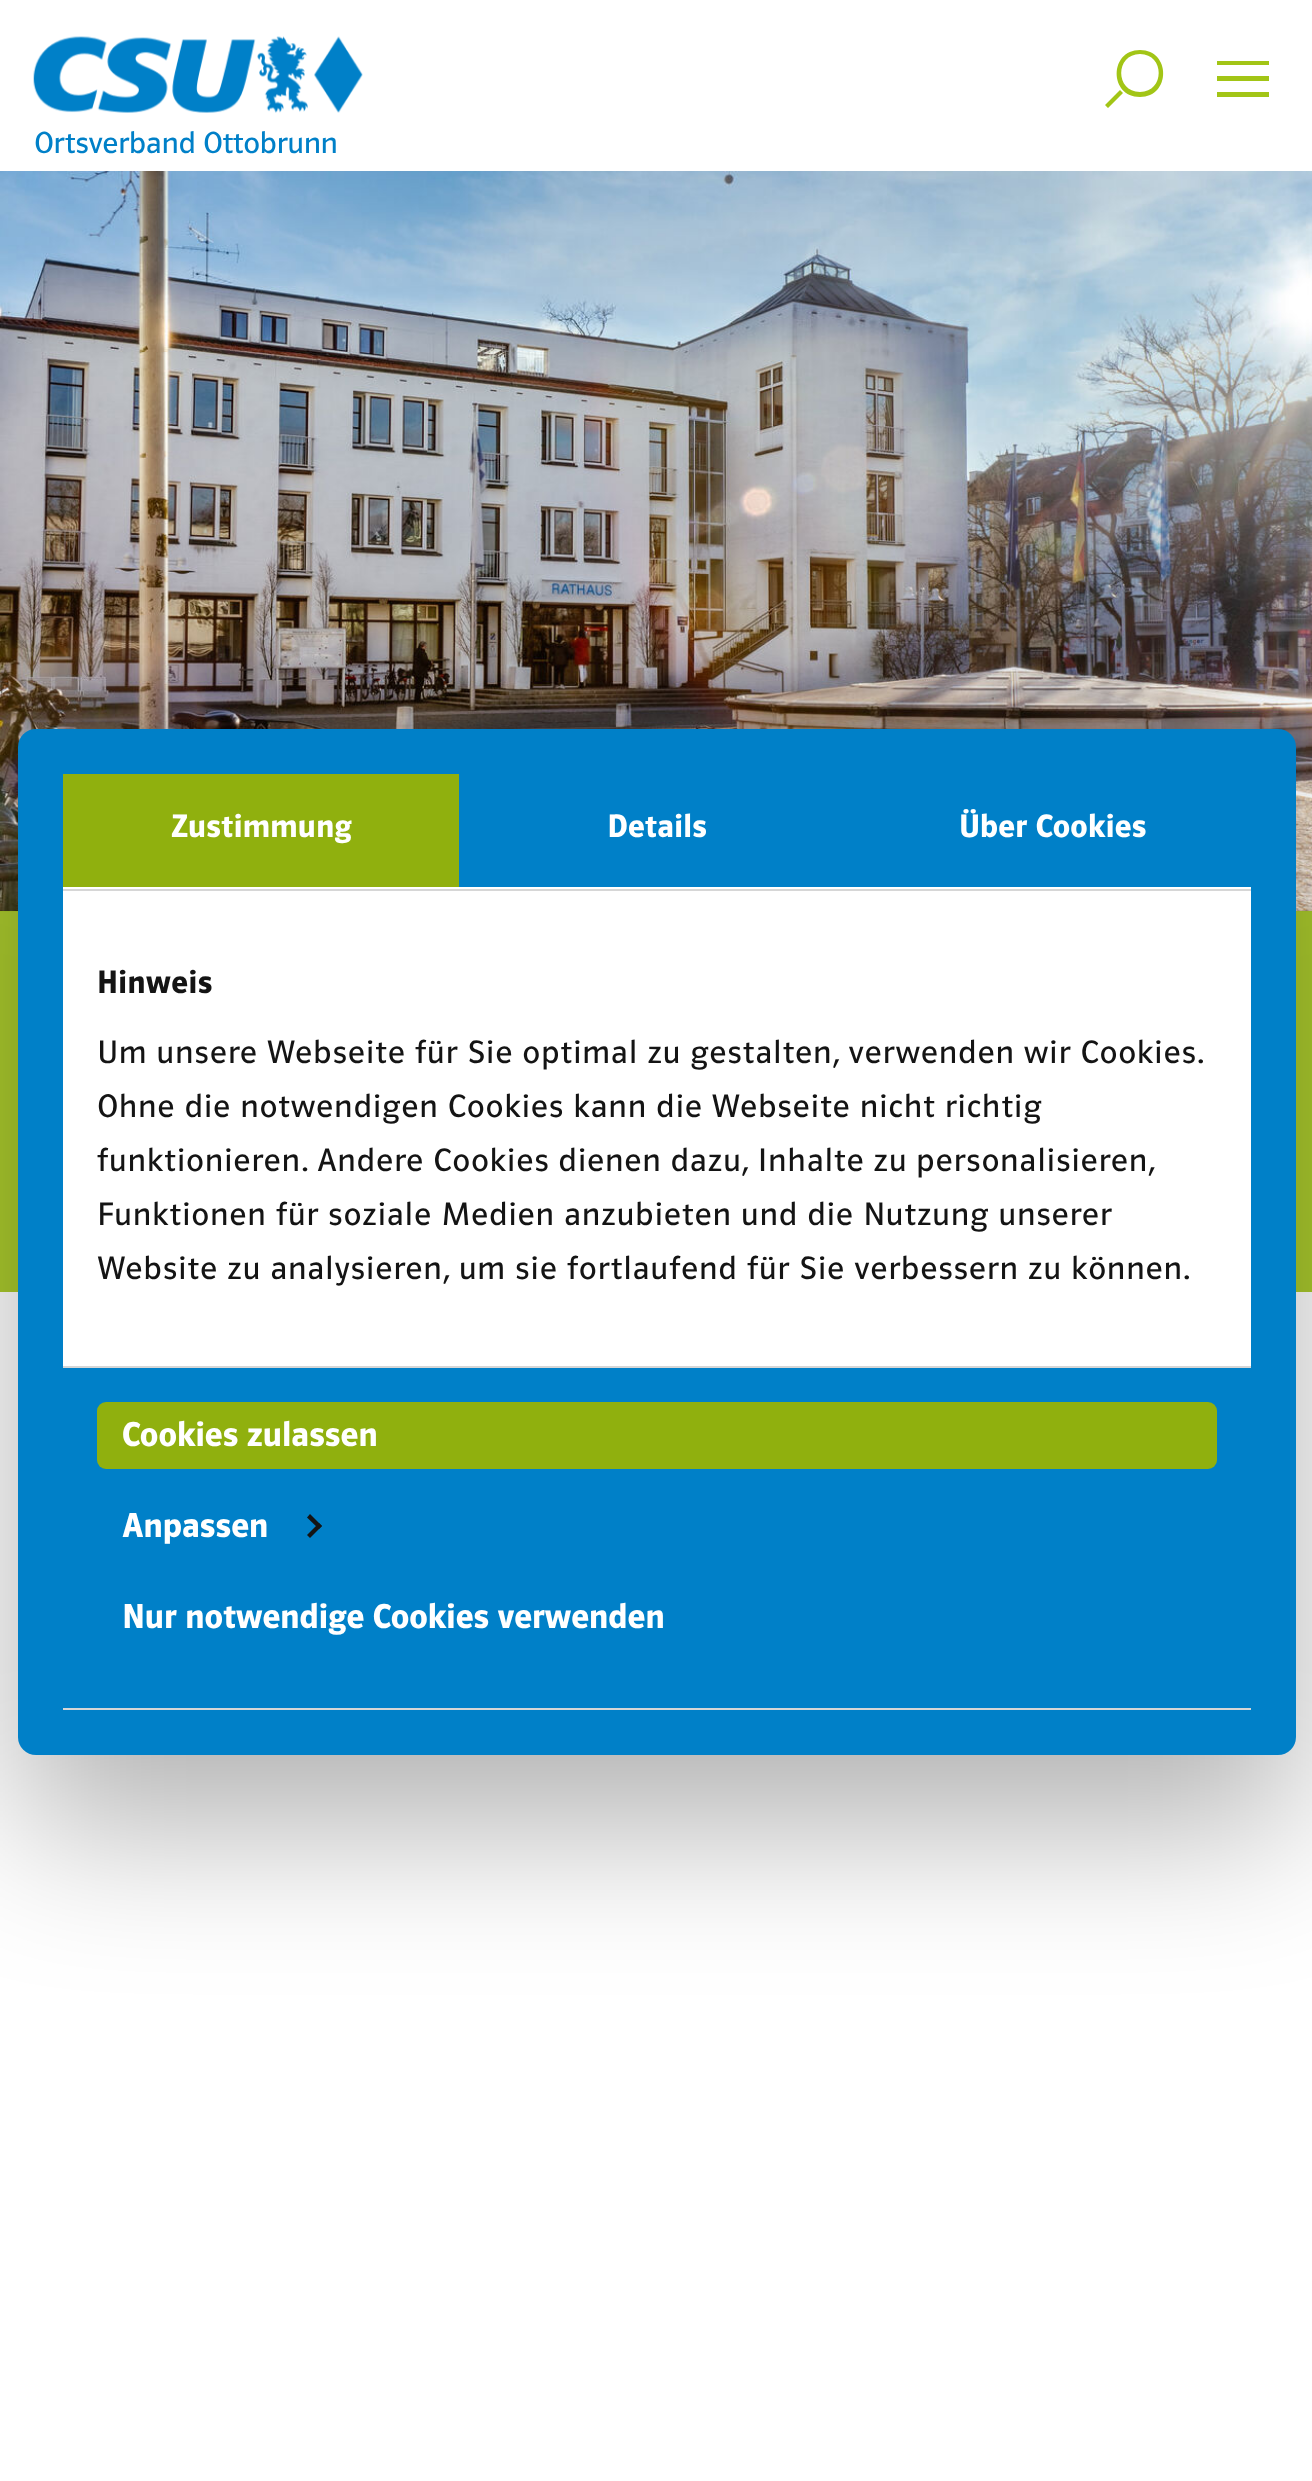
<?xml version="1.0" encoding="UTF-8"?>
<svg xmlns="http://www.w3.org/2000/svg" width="1312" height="2481">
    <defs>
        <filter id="blur1" x="-50%" y="-200%" width="200%" height="500%"><feGaussianBlur stdDeviation="76.5"/></filter>
    </defs>
    <rect width="100%" height="100%" fill="#FFFFFF"/>
    <path d="M 1105 105 L 1108 108 L 1123 93 L 1120 90 Z M 1140 92 C 1115 92 1115 54 1140 54 C 1165 54 1165 92 1140 92 Z M 1140 50 C 1109 50 1109 97 1140 97 C 1171 97 1171 50 1140 50 Z" fill="#A2C516" fill-rule="evenodd"/>
    <path d="M 1217 65 H 1269 V 61 H 1217 Z M 1217 81 H 1269 V 76 H 1217 Z M 1217 97 H 1269 V 92 H 1217 Z" fill="#A2C516" fill-rule="evenodd"/>
    <image x="33" y="36" width="330" height="77" href="img_01.png"/>
    <text x="34" y="153" font-family="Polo" font-size="31.5" fill="#0080C8">Ortsverband Ottobrunn</text>
    <image x="0" y="171" width="1312" height="741" href="img_02.png"/>
    <rect x="0" y="911" width="1312" height="381" fill="#A2C516" fill-opacity="0.9"/>
    <rect x="18" y="801" width="1278" height="1026" rx="18" fill="#000000" fill-opacity="0.3" filter="url(#blur1)"/>
    <rect x="18" y="729" width="1278" height="1026" rx="18" fill="#0080C8"/>
    <rect x="63" y="889" width="1188" height="2" fill="#D6D6D6"/>
    <rect x="63" y="774" width="396" height="113" fill="#90B00E"/>
    <rect x="63" y="887" width="1188" height="2" fill="#FFFFFF"/>
    <text x="171" y="837" font-family="Polo" font-size="33.75" font-weight="700" letter-spacing="0.25" fill="#FFFFFF">Zustimmung</text>
    <text x="607" y="837" font-family="Polo" font-size="33.75" font-weight="700" letter-spacing="0.25" fill="#FFFFFF">Details</text>
    <text x="959" y="837" font-family="Polo" font-size="33.75" font-weight="700" letter-spacing="0.25" fill="#FFFFFF">Über Cookies</text>
    <rect x="63" y="891" width="1188" height="475" fill="#FFFFFF"/>
    <rect x="63" y="1366" width="1188" height="2" fill="#D6D6D6"/>
    <text x="97" y="993" font-family="Polo" font-size="33.75" font-weight="700" letter-spacing="0.5" fill="#141414">Hinweis</text>
    <text font-family="Polo" font-size="33.75" letter-spacing="1.12" fill="#141414">
        <tspan x="97" y="1063">Um unsere Webseite für Sie optimal zu gestalten, verwenden wir Cookies.</tspan>
        <tspan x="97" y="1117">Ohne die notwendigen Cookies kann die Webseite nicht richtig</tspan>
        <tspan x="97" y="1171" word-spacing="-0.25">funktionieren. Andere Cookies dienen dazu, Inhalte zu personalisieren,</tspan>
        <tspan x="97" y="1225">Funktionen für soziale Medien anzubieten und die Nutzung unserer</tspan>
        <tspan x="97" y="1279">Website zu analysieren, um sie fortlaufend für Sie verbessern zu können.</tspan>
    </text>
    <rect x="63" y="1708" width="1188" height="2" fill="#D6D6D6"/>
    <rect x="97" y="1402" width="1120" height="67" rx="9" fill="#90B00E"/>
    <text x="122" y="1446" font-family="Polo" font-size="36" font-weight="700" fill="#FFFFFF">Cookies zulassen</text>
    <text x="122" y="1537" font-family="Polo" font-size="36" font-weight="700" fill="#FFFFFF">Anpassen</text>
    <path d="M 310 1514 L 322 1526 L 319 1529 L 307 1517.5 Z" fill="#141414"/>
    <path d="M 319 1523 L 322 1526 L 310 1538 L 307 1535 Z" fill="#141414"/>
    <text x="122" y="1628" font-family="Polo" font-size="36" font-weight="700" fill="#FFFFFF">Nur notwendige Cookies verwenden</text>
</svg>
